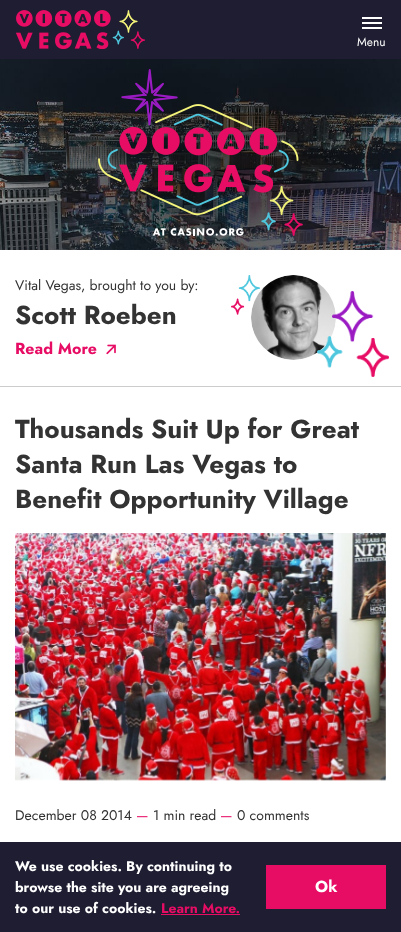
<?xml version="1.0" encoding="UTF-8"?>
<svg xmlns="http://www.w3.org/2000/svg" width="401" height="932">
    <rect width="100%" height="100%" fill="#FFFFFF"/>
    <rect x="0" y="0" width="401" height="59" fill="#1E1D31"/>
    <image x="15" y="10" width="130" height="39" href="img_01.png"/>
    <rect x="362" y="22" width="20" height="2" fill="#FFFFFF"/>
    <rect x="362" y="17" width="20" height="2" fill="#FFFFFF"/>
    <rect x="362" y="27" width="20" height="2" fill="#FFFFFF"/>
    <text x="357" y="46" font-family="Jost" font-size="12" fill="#FFFFFF">Menu</text>
    <image x="0" y="59" width="401" height="191" href="img_02.png"/>
    <image x="98" y="69" width="205" height="167" href="img_03.png"/>
    <text x="15" y="290" font-family="Jost" font-size="14" fill="#333333">Vital Vegas, brought to you by:</text>
    <text x="15" y="324" font-family="Jost" font-size="26" font-weight="700" fill="#333333">Scott Roeben</text>
    <text x="15" y="354" font-family="Jost" font-size="16" font-weight="700" fill="#E70D65">Read More</text>
    <image x="106" y="344" width="10" height="11" href="img_04.png"/>
    <image x="251" y="275" width="85" height="85" href="img_06.png"/>
    <image x="231" y="275" width="29" height="40" href="img_05.png"/>
    <image x="317" y="291" width="72" height="86" href="img_07.png"/>
    <rect x="0" y="386" width="401" height="1" fill="#CCCCCC"/>
    <text font-family="Jost" font-size="26" font-weight="700" fill="#333333">
        <tspan x="15" y="438">Thousands Suit Up for Great</tspan>
        <tspan x="15" y="473">Santa Run Las Vegas to</tspan>
        <tspan x="15" y="508">Benefit Opportunity Village</tspan>
    </text>
    <image x="15" y="533" width="371" height="248" href="img_08.png"/>
    <text x="15" y="820" font-family="Jost" font-size="14" fill="#333333">December 08 2014</text>
    <text x="136" y="820" font-family="Jost" font-size="14" fill="#E70D65">—</text>
    <text x="153" y="820" font-family="Jost" font-size="14" fill="#333333">1 min read</text>
    <text x="220" y="820" font-family="Jost" font-size="14" fill="#E70D65">—</text>
    <text x="237" y="820" font-family="Jost" font-size="14" fill="#333333">0 comments</text>
    <rect x="0" y="842" width="401" height="90" fill="#1E1D31"/>
    <text font-family="Jost" font-size="14" font-weight="700" fill="#FFFFFF">
        <tspan x="15" y="871">We use cookies. By continuing to</tspan>
        <tspan x="15" y="892">browse the site you are agreeing</tspan>
        <tspan x="15" y="913">to our use of cookies.</tspan>
    </text>
    <text x="161" y="913" font-family="Jost" font-size="14" font-weight="700" fill="#E70D65">Learn More.</text>
    <rect x="161" y="914" width="79" height="1" fill="#E70D65"/>
    <rect x="266" y="865" width="120" height="44" fill="#E70D65"/>
    <text x="315" y="892" font-family="Jost" font-size="16" font-weight="700" fill="#FFFFFF">Ok</text>
</svg>
